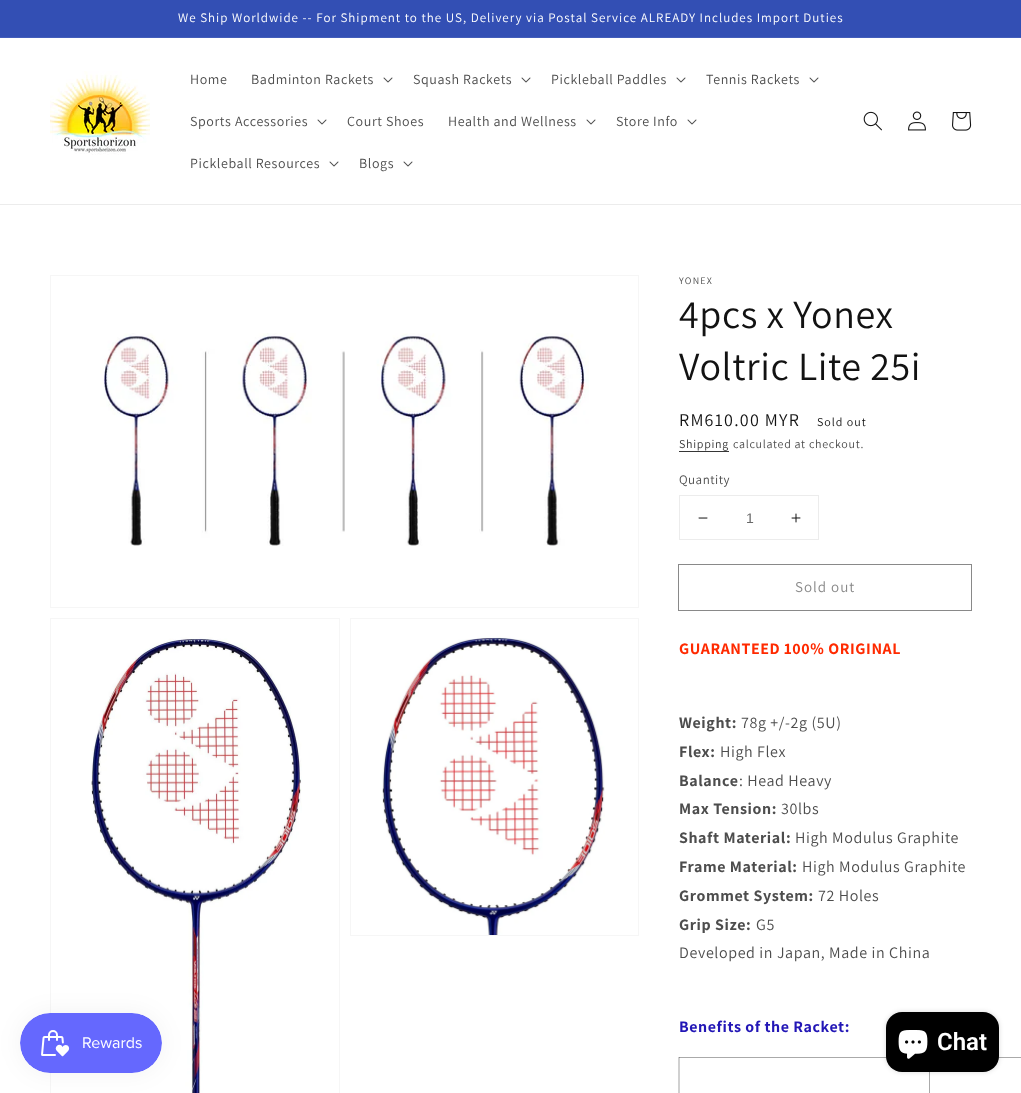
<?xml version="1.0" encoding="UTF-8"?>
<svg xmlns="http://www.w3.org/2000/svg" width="1021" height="1093">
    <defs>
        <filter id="blur1" x="-50%" y="-200%" width="200%" height="500%"><feGaussianBlur stdDeviation="12.5"/></filter>
        <filter id="blur2" x="-50%" y="-200%" width="200%" height="500%"><feGaussianBlur stdDeviation="2.5"/></filter>
    </defs>
    <rect width="100%" height="100%" fill="#FFFFFF"/>
    <rect x="0" y="0" width="1021" height="37" fill="#334FB4"/>
    <rect x="0" y="37" width="1021" height="1" fill="#435DBA"/>
    <text x="178" y="22" font-family="Assistant" font-size="13" letter-spacing="1" fill="#FFFFFF">We Ship Worldwide -- For Shipment to the US, Delivery via Postal Service ALREADY Includes Import Duties</text>
    <rect x="0" y="204" width="1021" height="1" fill="#ECECEC"/>
    <image x="50" y="71" width="100" height="84" href="img_01.png"/>
    <text x="190" y="84" font-family="Assistant" font-size="14" letter-spacing="0.6" fill="#4D4D4D">Home</text>
    <text x="251" y="84" font-family="Assistant" font-size="14" letter-spacing="0.6" fill="#4D4D4D">Badminton Rackets</text>
    <image x="383" y="77" width="10" height="6" href="img_02.png"/>
    <text x="413" y="84" font-family="Assistant" font-size="14" letter-spacing="0.6" fill="#4D4D4D">Squash Rackets</text>
    <image x="521" y="77" width="10" height="6" href="img_02.png"/>
    <text x="551" y="84" font-family="Assistant" font-size="14" letter-spacing="0.6" fill="#4D4D4D">Pickleball Paddles</text>
    <image x="676" y="77" width="10" height="6" href="img_02.png"/>
    <text x="706" y="84" font-family="Assistant" font-size="14" letter-spacing="0.6" fill="#4D4D4D">Tennis Rackets</text>
    <image x="809" y="77" width="10" height="6" href="img_02.png"/>
    <text x="190" y="126" font-family="Assistant" font-size="14" letter-spacing="0.6" fill="#4D4D4D">Sports Accessories</text>
    <image x="317" y="119" width="10" height="6" href="img_02.png"/>
    <text x="347" y="126" font-family="Assistant" font-size="14" letter-spacing="0.6" fill="#4D4D4D">Court Shoes</text>
    <text x="448" y="126" font-family="Assistant" font-size="14" letter-spacing="0.6" fill="#4D4D4D">Health and Wellness</text>
    <image x="586" y="119" width="10" height="6" href="img_02.png"/>
    <text x="616" y="126" font-family="Assistant" font-size="14" letter-spacing="0.6" fill="#4D4D4D">Store Info</text>
    <image x="687" y="119" width="10" height="6" href="img_02.png"/>
    <text x="190" y="168" font-family="Assistant" font-size="14" letter-spacing="0.6" fill="#4D4D4D">Pickleball Resources</text>
    <image x="329" y="161" width="10" height="6" href="img_02.png"/>
    <text x="359" y="168" font-family="Assistant" font-size="14" letter-spacing="0.6" fill="#4D4D4D">Blogs</text>
    <image x="403" y="161" width="10" height="6" href="img_02.png"/>
    <image x="863" y="111" width="19" height="20" href="img_03.png"/>
    <image x="908" y="111" width="18" height="20" href="img_04.png"/>
    <image x="952" y="112" width="20" height="19" href="img_05.png"/>
    <rect x="50.5" y="618.5" width="289" height="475" fill="none" stroke="#F6F6F6"/>
    <image x="91" y="637" width="211" height="456" href="img_08.png"/>
    <rect x="20" y="1013" width="142" height="60" rx="30" fill="#000000" fill-opacity="0.05" filter="url(#blur1)"/>
    <image x="20" y="1013" width="142" height="60" href="img_06.png"/>
    <rect x="50.5" y="275.5" width="588" height="332" fill="none" stroke="#F6F6F6"/>
    <image x="100" y="333" width="489" height="213" href="img_07.png"/>
    <rect x="350.5" y="618.5" width="288" height="317" fill="none" stroke="#F6F6F6"/>
    <image x="382" y="636" width="223" height="299" href="img_09.png"/>
    <text x="679" y="284" font-family="Assistant" font-size="10" letter-spacing="1.25" fill="#4D4D4D">YONEX</text>
    <text font-family="Assistant" font-size="40" letter-spacing="0.6" fill="#121212">
        <tspan x="679" y="328">4pcs x Yonex</tspan>
        <tspan x="679" y="380">Voltric Lite 25i</tspan>
    </text>
    <text x="679" y="426" font-family="Assistant" font-size="18" letter-spacing="1.25" fill="#121212">RM610.00 MYR</text>
    <text x="817" y="426" font-family="Assistant" font-size="12" letter-spacing="1" fill="#121212">Sold out</text>
    <text x="679" y="448" font-family="Assistant" font-size="12" letter-spacing="0.7" fill="#363636">Shipping</text>
    <rect x="679" y="451" width="50" height="1" fill="#363636"/>
    <text x="733" y="448" font-family="Assistant" font-size="12" letter-spacing="0.7" fill="#4D4D4D">calculated at checkout.</text>
    <text x="679" y="484" font-family="Assistant" font-size="13" letter-spacing="0.5" fill="#4D4D4D">Quantity</text>
    <rect x="679.5" y="495.5" width="139" height="44" fill="none" stroke="#ECECEC"/>
    <image x="698" y="517" width="10" height="2" href="img_10.png"/>
    <text x="746" y="523" font-family="Liberation Sans" font-size="14" fill="#686868">1</text>
    <image x="791" y="513" width="10" height="10" href="img_11.png"/>
    <rect x="678.5" y="564.5" width="293" height="46" fill="none" stroke="#898989"/>
    <text x="795" y="592" font-family="Assistant" font-size="15" letter-spacing="1" fill="#898989">Sold out</text>
    <text x="679" y="654" font-family="Assistant" font-size="16" font-weight="700" letter-spacing="0.6" fill="#FF2A00">GUARANTEED 100% ORIGINAL</text>
    <text x="679" y="728" font-family="Assistant" font-size="16" font-weight="700" letter-spacing="0.6" fill="#4D4D4D">Weight:</text>
    <text x="741" y="728" font-family="Assistant" font-size="16" letter-spacing="0.6" fill="#4D4D4D">78g +/-2g (5U)</text>
    <text x="679" y="757" font-family="Assistant" font-size="16" font-weight="700" letter-spacing="0.6" fill="#4D4D4D">Flex:</text>
    <text x="720" y="757" font-family="Assistant" font-size="16" letter-spacing="0.6" fill="#4D4D4D">High Flex</text>
    <text x="679" y="786" font-family="Assistant" font-size="16" font-weight="700" letter-spacing="0.6" fill="#4D4D4D">Balance</text>
    <text x="739" y="786" font-family="Assistant" font-size="16" letter-spacing="0.6" fill="#4D4D4D">: Head Heavy</text>
    <text x="679" y="814" font-family="Assistant" font-size="16" font-weight="700" letter-spacing="0.6" fill="#4D4D4D">Max Tension:</text>
    <text x="781" y="814" font-family="Assistant" font-size="16" letter-spacing="0.6" fill="#4D4D4D">30lbs</text>
    <text x="679" y="843" font-family="Assistant" font-size="16" font-weight="700" letter-spacing="0.6" fill="#4D4D4D">Shaft Material:</text>
    <text x="795" y="843" font-family="Assistant" font-size="16" letter-spacing="0.6" fill="#4D4D4D">High Modulus Graphite</text>
    <text x="679" y="872" font-family="Assistant" font-size="16" font-weight="700" letter-spacing="0.6" fill="#4D4D4D">Frame Material:</text>
    <text x="802" y="872" font-family="Assistant" font-size="16" letter-spacing="0.6" fill="#4D4D4D">High Modulus Graphite</text>
    <text x="679" y="901" font-family="Assistant" font-size="16" font-weight="700" letter-spacing="0.6" fill="#4D4D4D">Grommet System:</text>
    <text x="818" y="901" font-family="Assistant" font-size="16" letter-spacing="0.6" fill="#4D4D4D">72 Holes</text>
    <text x="679" y="930" font-family="Assistant" font-size="16" font-weight="700" letter-spacing="0.6" fill="#4D4D4D">Grip Size:</text>
    <text x="756" y="930" font-family="Assistant" font-size="16" letter-spacing="0.6" fill="#4D4D4D">G5</text>
    <text x="679" y="958" font-family="Assistant" font-size="16" letter-spacing="0.6" fill="#4D4D4D">Developed in Japan, Made in China</text>
    <text x="679" y="1032" font-family="Assistant" font-size="16" font-weight="700" letter-spacing="0.6" fill="#2216B6">Benefits of the Racket:</text>
    <rect x="678.5" y="1057.5" width="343" height="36" fill="none" stroke="#D0D0D0"/>
    <rect x="679" y="1057" width="208" height="1" fill="#121212" fill-opacity="0.2"/>
    <rect x="929" y="1072" width="1" height="21" fill="#121212" fill-opacity="0.2"/>
    <rect x="929" y="1072" width="1" height="21" fill="#121212" fill-opacity="0.2"/>
    <rect x="679" y="1057" width="1" height="36" fill="#121212" fill-opacity="0.2"/>
    <rect x="998" y="1057" width="23" height="1" fill="#AAAAAA"/>
    <rect x="886" y="1012" width="113" height="60" rx="16" fill="#000000" fill-opacity="0.15" filter="url(#blur2)"/>
    <rect x="886" y="1012" width="113" height="60" rx="16" fill="#000000"/>
    <image x="898" y="1030" width="30" height="29" href="img_12.png"/>
    <text x="937" y="1050" font-family="Roboto" font-size="24" font-weight="600" fill="#FFFFFF">Chat</text>
</svg>
